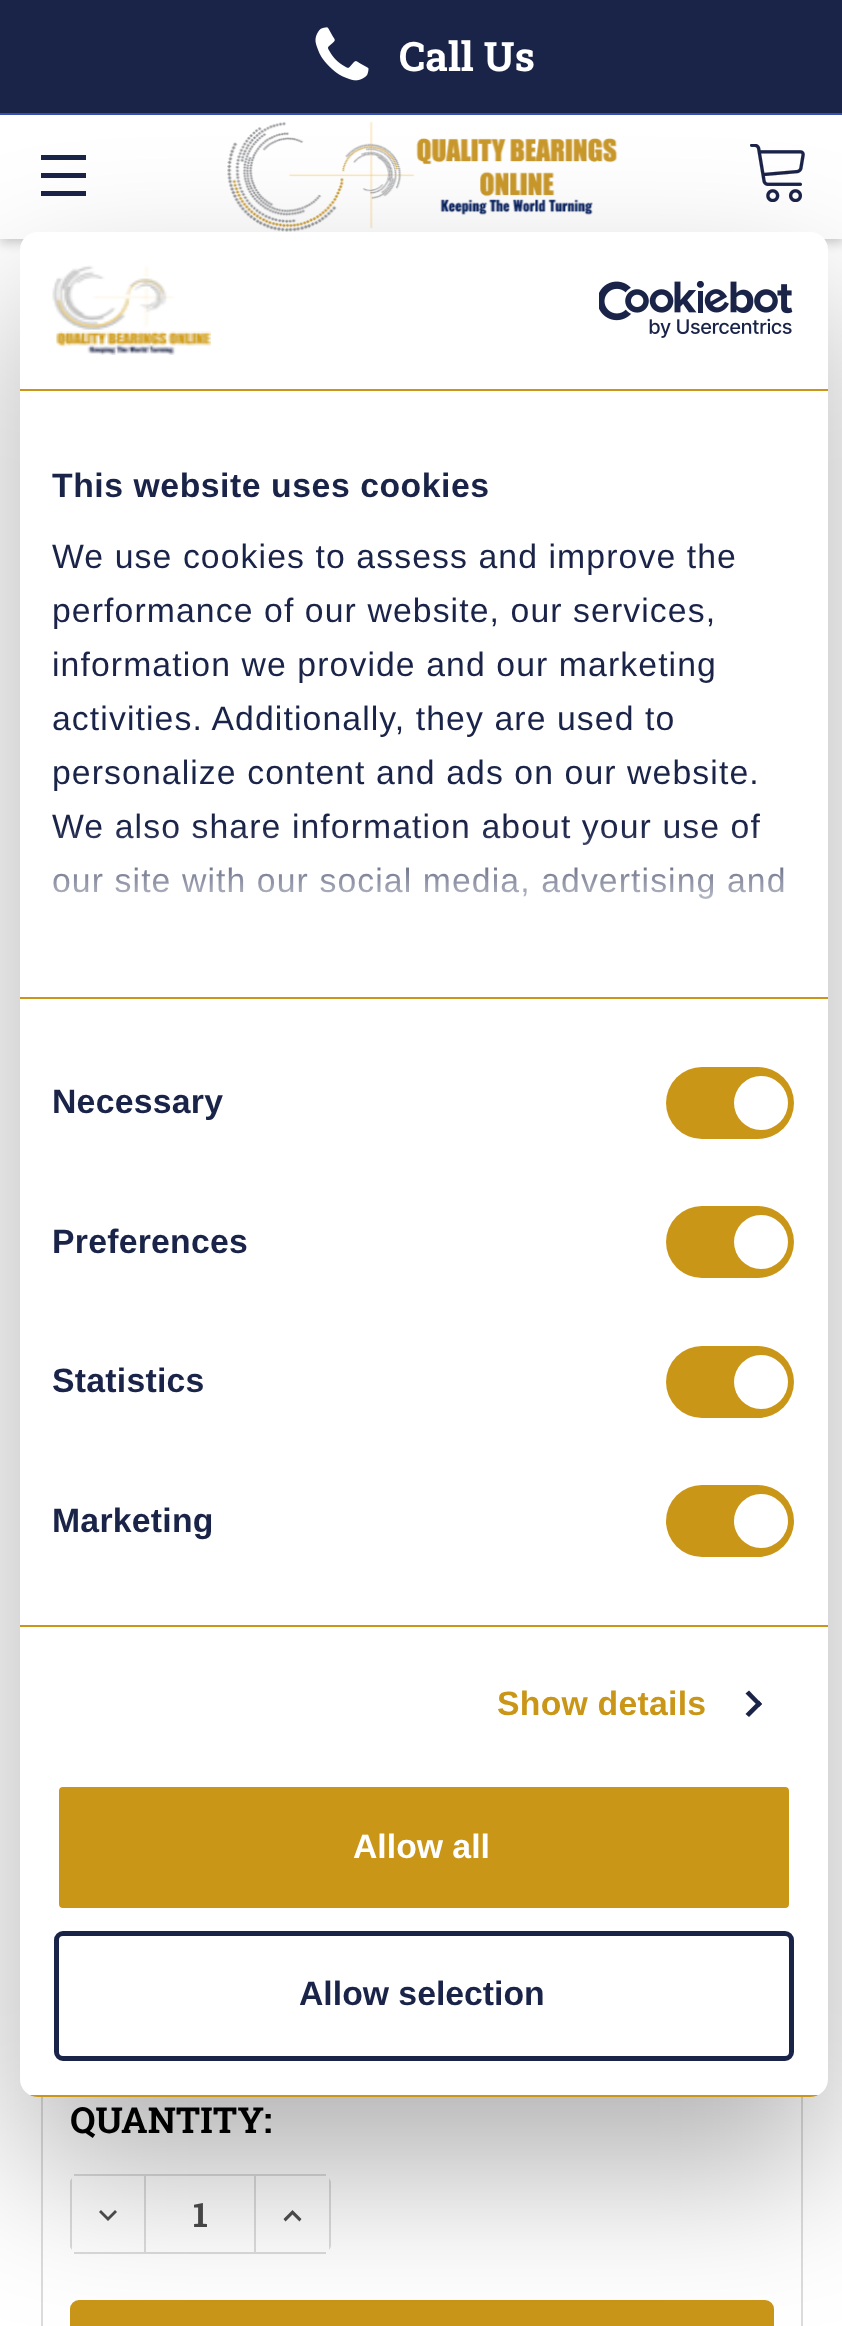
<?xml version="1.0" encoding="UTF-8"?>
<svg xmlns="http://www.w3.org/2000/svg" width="842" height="2326">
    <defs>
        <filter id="blur1" x="-50%" y="-200%" width="200%" height="500%"><feGaussianBlur stdDeviation="5.5"/></filter>
        <filter id="blur2" x="-50%" y="-200%" width="200%" height="500%"><feGaussianBlur stdDeviation="76.5"/></filter>
        <linearGradient id="g1" gradientUnits="userSpaceOnUse" x1="408" y1="996" x2="408" y2="827"><stop offset="0" stop-color="#FFFFFF"/><stop offset="0.5" stop-color="#FFFFFF" stop-opacity="0.8"/><stop offset="1" stop-color="#FFFFFF" stop-opacity="0"/></linearGradient>
        <clipPath id="clip1"><rect x="20" y="232" width="808" height="1865" rx="18"/></clipPath>
    </defs>
    <rect width="100%" height="100%" fill="#FFFFFF"/>
    <rect x="0" y="5" width="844" height="238" fill="#000000" fill-opacity="0.2" filter="url(#blur1)"/>
    <rect x="0" y="115" width="842" height="124" fill="#FFFFFF"/>
    <rect x="0" y="0" width="842" height="113" fill="#1A2348"/>
    <image x="315" y="27" width="54" height="54" href="img_01.png"/>
    <text x="399" y="71" font-family="Roboto Slab" font-size="40.5" font-weight="700" fill="#FFFFFF">Call Us</text>
    <rect x="0" y="113" width="842" height="2" fill="#384FB2"/>
    <rect x="41" y="173" width="45" height="5" fill="#1A2348"/>
    <rect x="41" y="155" width="45" height="5" fill="#1A2348"/>
    <rect x="41" y="191" width="45" height="5" fill="#1A2348"/>
    <image x="227" y="121" width="391" height="111" href="img_02.png"/>
    <image x="750" y="144" width="55" height="58" href="img_03.png"/>
    <rect x="42" y="408" width="760" height="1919" fill="none" stroke="#DCDCDC" stroke-width="2"/>
    <rect x="74" y="2174" width="252" height="2" fill="#DCDCDC"/>
    <rect x="74" y="2252" width="252" height="2" fill="#DCDCDC"/>
    <rect x="144" y="2176" width="2" height="76" fill="#DCDCDC"/>
    <path d="M 70 2181 L 72 2178 V 2250 L 70 2247 Z" fill="#DCDCDC"/>
    <path d="M 101 2210 L 108 2217 L 115 2210 L 117 2212 L 108 2221 L 99 2212 Z" fill="#4F4F4F"/>
    <path d="M 329 2178 C 330 2180 331 2181 331 2182 V 2246 C 331 2247 330 2248 329 2250 Z" fill="#DCDCDC"/>
    <rect x="254" y="2176" width="2" height="76" fill="#DCDCDC"/>
    <path d="M 285.5 2221.5 L 292.5 2214.5 L 299.5 2221.5 L 301.5 2219 L 292.5 2210 L 283.5 2219 Z" fill="#4F4F4F"/>
    <rect x="71" y="2301" width="702" height="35" rx="8" fill="#CA9618" stroke="#CA9618" stroke-width="2"/>
    <rect x="20" y="304" width="808" height="1865" rx="18" fill="#000000" fill-opacity="0.3" filter="url(#blur2)"/>
    <rect x="20" y="232" width="808" height="1865" rx="18" fill="#FFFFFF"/>
    <rect x="20" y="389" width="808" height="2" fill="#CA9618"/>
    <image x="52" y="265" width="159" height="90" href="img_04.png"/>
    <image x="599" y="281" width="194" height="57" href="img_05.png"/>
    <rect x="20" y="997" width="808" height="2" fill="#CA9618"/>
    <text x="52" y="497" font-family="Liberation Sans" font-size="33.75" font-weight="700" letter-spacing="0.55" fill="#1A2348">This website uses cookies</text>
    <text font-family="Liberation Sans" font-size="33.75" letter-spacing="1.1" fill="#1A2348">
        <tspan x="52" y="568">We use cookies to assess and improve the</tspan>
        <tspan x="52" y="622">performance of our website, our services,</tspan>
        <tspan x="52" y="676">information we provide and our marketing</tspan>
        <tspan x="52" y="730">activities. Additionally, they are used to</tspan>
        <tspan x="52" y="784">personalize content and ads on our website.</tspan>
        <tspan x="52" y="838">We also share information about your use of</tspan>
        <tspan x="52" y="892">our site with our social media, advertising and</tspan>
    </text>
    <rect x="53" y="829" width="732" height="70" fill="url(#g1)"/>
    <rect x="20" y="1625" width="808" height="2" fill="#CA9618"/>
    <text x="52" y="1113" font-family="Liberation Sans" font-size="33.75" font-weight="700" letter-spacing="0.25" fill="#1A2348">Necessary</text>
    <rect x="666" y="1067" width="128" height="72" rx="36" fill="#CA9618"/>
    <circle cx="761" cy="1103" r="27" fill="#FFFFFF"/>
    <text x="52" y="1253" font-family="Liberation Sans" font-size="33.75" font-weight="700" letter-spacing="0.25" fill="#1A2348">Preferences</text>
    <rect x="666" y="1206" width="128" height="72" rx="36" fill="#CA9618"/>
    <circle cx="761" cy="1242" r="27" fill="#FFFFFF"/>
    <text x="52" y="1392" font-family="Liberation Sans" font-size="33.75" font-weight="700" letter-spacing="0.25" fill="#1A2348">Statistics</text>
    <rect x="666" y="1346" width="128" height="72" rx="36" fill="#CA9618"/>
    <circle cx="761" cy="1382" r="27" fill="#FFFFFF"/>
    <text x="52" y="1532" font-family="Liberation Sans" font-size="33.75" font-weight="700" letter-spacing="0.25" fill="#1A2348">Marketing</text>
    <rect x="666" y="1485" width="128" height="72" rx="36" fill="#CA9618"/>
    <circle cx="761" cy="1521" r="27" fill="#FFFFFF"/>
    <text x="497" y="1715" font-family="Liberation Sans" font-size="33.75" font-weight="700" letter-spacing="0.25" fill="#CA9618">Show details</text>
    <path d="M 749 1690.5 L 762 1704 L 759 1707 L 745.5 1693.5 Z" fill="#1A2348"/>
    <path d="M 759 1700.5 L 762 1704 L 749 1717 L 745.5 1714 Z" fill="#1A2348"/>
    <g clip-path="url(#clip1)">
        <rect x="30" y="2095" width="788" height="2" fill="#CA9618"/>
    </g>
    <rect x="56.5" y="1784.5" width="735" height="126" rx="6.5" fill="#CA9618" stroke="#FFFFFF" stroke-width="5"/>
    <text x="353" y="1858" font-family="Liberation Sans" font-size="33.75" font-weight="700" fill="#FFFFFF">Allow all</text>
    <rect x="56.5" y="1933.5" width="735" height="125" rx="6.5" fill="none" stroke="#1A2348" stroke-width="5"/>
    <text x="299" y="2005" font-family="Liberation Sans" font-size="33.75" font-weight="700" fill="#1A2348">Allow selection</text>
    <text x="70" y="2133" font-family="Roboto Slab" font-size="36" font-weight="700" fill="#000000">QUANTITY:</text>
    <text x="193" y="2227" font-family="Roboto Slab" font-size="33.75" font-weight="700" fill="#454545">1</text>
</svg>
